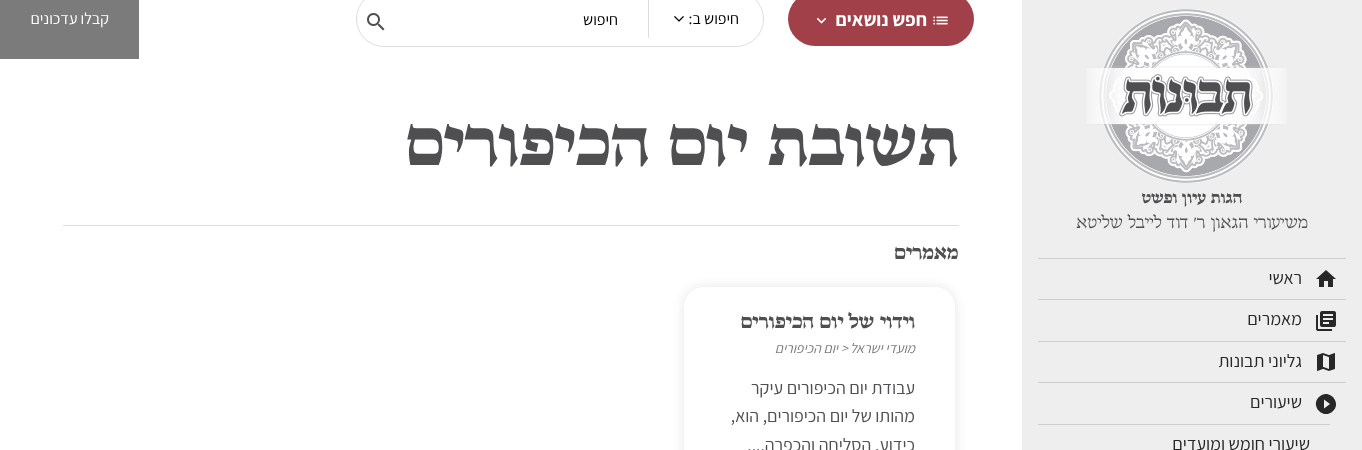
<?xml version="1.0" encoding="UTF-8"?>
<svg xmlns="http://www.w3.org/2000/svg" width="1362" height="450">
    <defs>
        <clipPath id="clip1"><path d="M 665 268 H 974 V 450 H 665 Z M 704 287 H 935 C 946 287 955 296 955 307 V 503 C 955 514 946 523 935 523 H 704 C 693 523 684 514 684 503 V 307 C 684 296 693 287 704 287 Z" clip-rule="evenodd"/></clipPath>
        <filter id="blur1" x="-50%" y="-200%" width="200%" height="500%"><feGaussianBlur stdDeviation="6"/></filter>
    </defs>
    <rect width="100%" height="100%" fill="#FFFFFF"/>
    <rect x="788" y="-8" width="186" height="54" rx="27" fill="#A14049"/>
    <image x="933" y="16" width="15" height="9" href="img_01.png"/>
    <text x="927" y="26" font-family="Assistant" font-size="19" font-weight="700" direction="rtl" fill="#FFFFFF">חפש נושאים</text>
    <image x="816" y="17" width="11" height="7" href="img_02.png"/>
    <rect x="356.5" y="-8.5" width="407" height="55" rx="27.5" fill="none" stroke="#DDDDDD"/>
    <rect x="648" y="0" width="1" height="38" fill="#DDDDDD"/>
    <text x="739" y="24" font-family="Assistant" font-size="16" direction="rtl" fill="#000000">חיפוש ב:</text>
    <image x="674" y="16" width="10" height="6" href="img_03.png"/>
    <text x="618" y="25" font-family="Assistant" font-size="16" direction="rtl" fill="#000000">חיפוש</text>
    <image x="367" y="13" width="18" height="18" href="img_04.png"/>
    <rect x="0" y="0" width="139" height="59" fill="#7B7B7B"/>
    <text x="109" y="24" font-family="Assistant" font-size="16" direction="rtl" fill="#FFFFFF">קבלו עדכונים</text>
    <rect x="1022" y="0" width="340" height="450" fill="#EEEEEE"/>
    <image x="1086" y="9" width="201" height="174" href="img_05.png"/>
    <text x="1242" y="203" font-family="Bona Nova" font-size="17" font-weight="700" direction="rtl" fill="#4F4F51">הגות עיון ופשט</text>
    <text x="1308" y="228" font-family="Bona Nova" font-size="18" direction="rtl" fill="#4F4F51">משיעורי הגאון ר׳ דוד לייבל שליטא</text>
    <rect x="1038" y="258" width="308" height="1" fill="#CECECE"/>
    <image x="1316" y="270" width="20" height="17" href="img_06.png"/>
    <text x="1302" y="284" font-family="Assistant" font-size="18" direction="rtl" fill="#272727">ראשי</text>
    <rect x="1038" y="299" width="308" height="1" fill="#CECECE"/>
    <image x="1316" y="311" width="20" height="20" href="img_07.png"/>
    <text x="1302" y="325" font-family="Assistant" font-size="18" direction="rtl" fill="#272727">מאמרים</text>
    <rect x="1038" y="341" width="308" height="1" fill="#CECECE"/>
    <image x="1317" y="353" width="18" height="18" href="img_08.png"/>
    <text x="1302" y="367" font-family="Assistant" font-size="18" direction="rtl" fill="#272727">גליוני תבונות</text>
    <rect x="1038" y="382" width="308" height="1" fill="#CECECE"/>
    <path d="M 1324 408.5 L 1330 404 L 1324 399.5 Z M 1319 397 C 1328 387.5 1342.5 402 1333 411 C 1324 420.5 1309.5 406 1319 397 Z" fill="#272727"/>
    <text x="1302" y="408" font-family="Assistant" font-size="18" direction="rtl" fill="#272727">שיעורים</text>
    <rect x="1038" y="424" width="292" height="1" fill="#CECECE"/>
    <text x="1310" y="450" font-family="Assistant" font-size="18" direction="rtl" fill="#272727">שיעורי חומש ומועדים</text>
    <rect x="63" y="225" width="896" height="1" fill="#DDDDDD"/>
    <text x="958" y="165" font-family="Bona Nova" font-size="70" font-weight="700" direction="rtl" fill="#4F4F51">תשובת יום הכיפורים</text>
    <text x="958" y="259" font-family="Bona Nova" font-size="21" font-weight="700" direction="rtl" fill="#4F4F51">מאמרים</text>
    <g clip-path="url(#clip1)">
        <rect x="684" y="287" width="271" height="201" rx="20" fill="#000000" fill-opacity="0.1" filter="url(#blur1)"/>
    </g>
    <text x="915" y="328" font-family="Bona Nova" font-size="21" font-weight="700" direction="rtl" fill="#4F4F51">וידוי של יום הכיפורים</text>
    <text x="915" y="353" font-family="Assistant" font-size="14" font-style="italic" direction="rtl" fill="#7B7B7B">מועדי ישראל</text>
    <text x="841" y="353" font-family="Assistant" font-size="14" font-style="italic" fill="#7B7B7B">&gt;</text>
    <text x="838" y="353" font-family="Assistant" font-size="14" font-style="italic" direction="rtl" fill="#7B7B7B">יום הכיפורים</text>
    <text font-family="Assistant" font-size="18" direction="rtl" fill="#4F4F51">
        <tspan x="915" y="394">עבודת יום הכיפורים עיקר</tspan>
        <tspan x="915" y="422">מהותו של יום הכיפורים, הוא,</tspan>
        <tspan x="915" y="451">כידוע, הסליחה והכפרה....</tspan>
    </text>
</svg>
